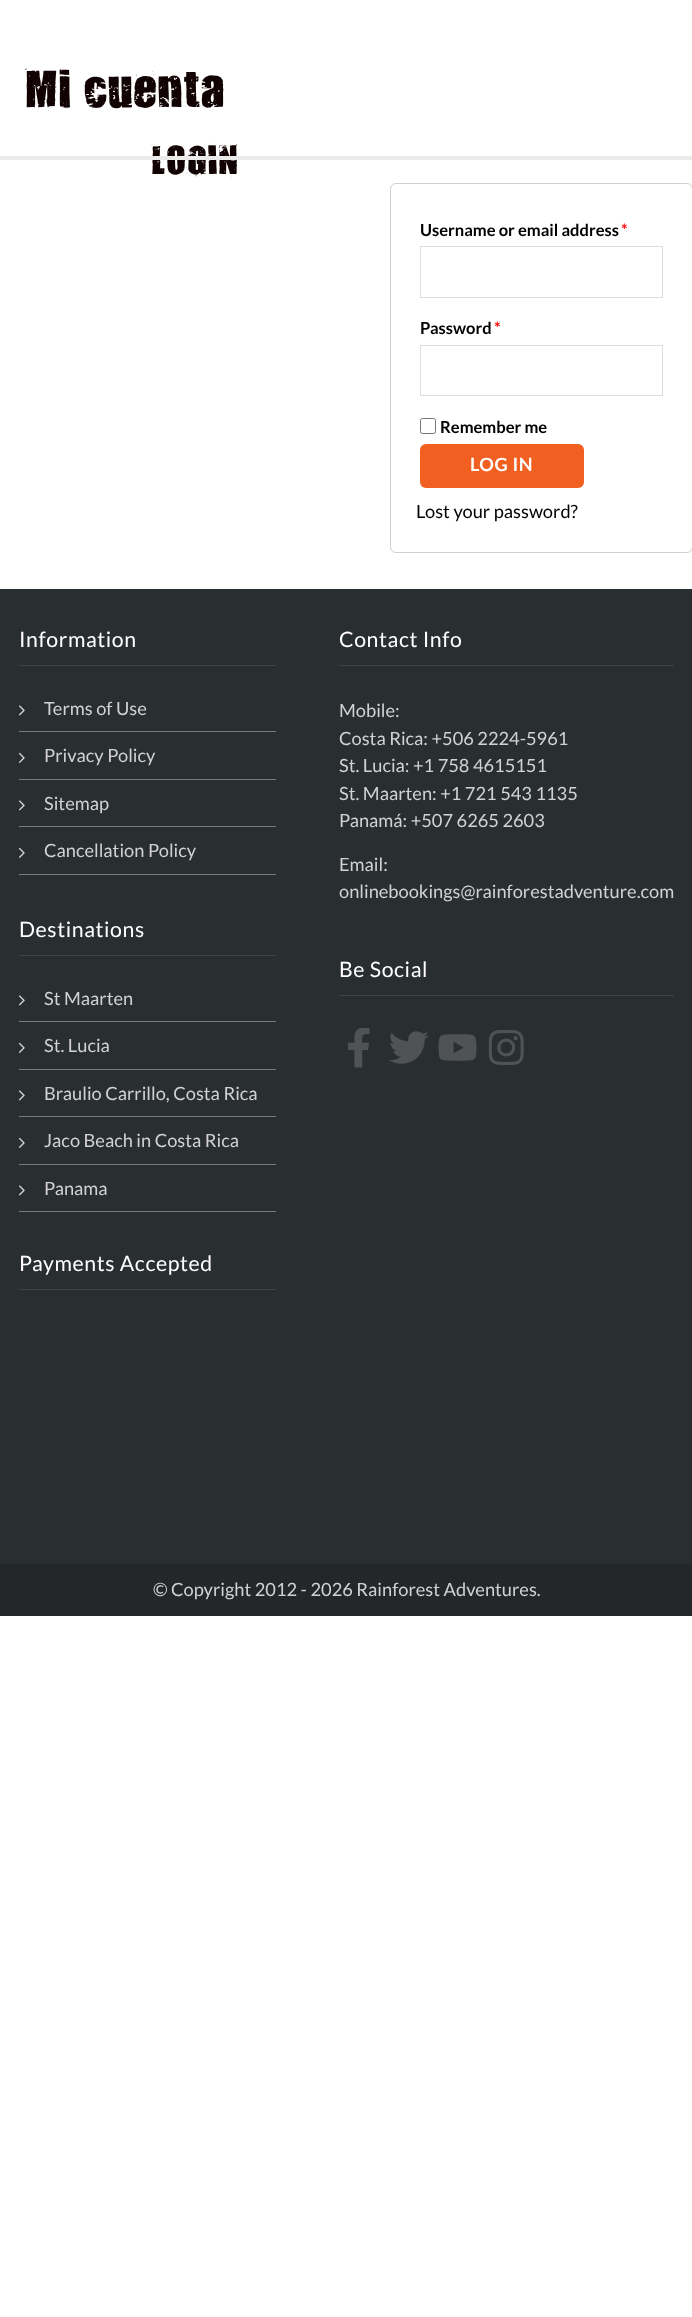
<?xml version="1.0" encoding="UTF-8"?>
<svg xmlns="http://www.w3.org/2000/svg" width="692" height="2317">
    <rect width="100%" height="100%" fill="#FFFFFF"/>
    <text x="25" y="107" font-family="'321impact'" font-size="43.75" fill="#110303">Mi cuenta</text>
    <text x="151" y="174" font-family="'321impact'" font-size="35" fill="#110303">LOGIN</text>
    <rect x="390.5" y="183.5" width="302" height="369" rx="5.5" fill="none" stroke="#D3CED2"/>
    <text x="420" y="236" font-family="Lato" font-size="16.5" font-weight="700" fill="#000000">Username or email address</text>
    <text x="621" y="236" font-family="Lato" font-size="16.5" font-weight="700" fill="#FF0000">*</text>
    <rect x="420.5" y="246.5" width="242" height="51" fill="none" stroke="#DDDDDD"/>
    <text x="420" y="334" font-family="Lato" font-size="16.5" font-weight="700" fill="#000000">Password</text>
    <text x="494" y="334" font-family="Lato" font-size="16.5" font-weight="700" fill="#FF0000">*</text>
    <rect x="420.5" y="345.5" width="242" height="50" fill="none" stroke="#DDDDDD"/>
    <rect x="420.5" y="418.5" width="15" height="15" rx="2" fill="none" stroke="#767676"/>
    <text x="440" y="433" font-family="Lato" font-size="16.5" font-weight="700" fill="#000000">Remember me</text>
    <rect x="420" y="444" width="164" height="44" rx="6" fill="#F15F21"/>
    <text x="470" y="471" font-family="Lato" font-size="18.25" font-weight="700" letter-spacing="0.6" fill="#FFFFFF">LOG IN</text>
    <text x="416" y="518" font-family="Lato" font-size="18.25" fill="#000000">Lost your password?</text>
    <rect x="0" y="156" width="692" height="4" fill="#EAEAEA"/>
    <rect x="0" y="589" width="692" height="975" fill="#292E31"/>
    <rect x="19" y="665" width="257" height="1" fill="#3E4346"/>
    <text x="19" y="647" font-family="Lato" font-size="21.25" letter-spacing="0.6" fill="#FFFFFF">Information</text>
    <rect x="19" y="731" width="257" height="1" fill="#7B7B7B"/>
    <image x="18" y="705" width="7" height="11" href="img_01.png"/>
    <text x="44" y="715" font-family="Lato" font-size="18.25" fill="#D2D2D2">Terms of Use</text>
    <rect x="19" y="779" width="257" height="1" fill="#7B7B7B"/>
    <image x="18" y="752" width="7" height="11" href="img_02.png"/>
    <text x="44" y="762" font-family="Lato" font-size="18.25" fill="#D2D2D2">Privacy Policy</text>
    <rect x="19" y="826" width="257" height="1" fill="#7B7B7B"/>
    <image x="18" y="800" width="7" height="11" href="img_01.png"/>
    <text x="44" y="810" font-family="Lato" font-size="18.25" fill="#D2D2D2">Sitemap</text>
    <rect x="19" y="874" width="257" height="1" fill="#7B7B7B"/>
    <image x="18" y="847" width="7" height="11" href="img_02.png"/>
    <text x="44" y="857" font-family="Lato" font-size="18.25" fill="#D2D2D2">Cancellation Policy</text>
    <rect x="19" y="955" width="257" height="1" fill="#3E4346"/>
    <text x="19" y="937" font-family="Lato" font-size="21.25" letter-spacing="0.6" fill="#FFFFFF">Destinations</text>
    <rect x="19" y="1021" width="257" height="1" fill="#7B7B7B"/>
    <image x="18" y="995" width="7" height="11" href="img_01.png"/>
    <text x="44" y="1005" font-family="Lato" font-size="18.25" fill="#D2D2D2">St Maarten</text>
    <rect x="19" y="1069" width="257" height="1" fill="#7B7B7B"/>
    <image x="18" y="1042" width="7" height="11" href="img_02.png"/>
    <text x="44" y="1052" font-family="Lato" font-size="18.25" fill="#D2D2D2">St. Lucia</text>
    <rect x="19" y="1116" width="257" height="1" fill="#7B7B7B"/>
    <image x="18" y="1090" width="7" height="11" href="img_01.png"/>
    <text x="44" y="1100" font-family="Lato" font-size="18.25" fill="#D2D2D2">Braulio Carrillo, Costa Rica</text>
    <rect x="19" y="1164" width="257" height="1" fill="#7B7B7B"/>
    <image x="18" y="1137" width="7" height="11" href="img_02.png"/>
    <text x="44" y="1147" font-family="Lato" font-size="18.25" fill="#D2D2D2">Jaco Beach in Costa Rica</text>
    <rect x="19" y="1211" width="257" height="1" fill="#7B7B7B"/>
    <image x="18" y="1185" width="7" height="11" href="img_01.png"/>
    <text x="44" y="1195" font-family="Lato" font-size="18.25" fill="#D2D2D2">Panama</text>
    <rect x="339" y="665" width="335" height="1" fill="#3E4346"/>
    <text x="339" y="647" font-family="Lato" font-size="21.25" letter-spacing="0.6" fill="#FFFFFF">Contact Info</text>
    <text font-family="Lato" font-size="18.25" fill="#D2D2D2">
        <tspan x="339" y="717">Mobile:</tspan>
        <tspan x="339" y="745">Costa Rica: +506 2224-5961</tspan>
        <tspan x="339" y="772">St. Lucia: +1 758 4615151</tspan>
        <tspan x="339" y="800">St. Maarten: +1 721 543 1135</tspan>
        <tspan x="339" y="827">Panamá: +507 6265 2603</tspan>
    </text>
    <text font-family="Lato" font-size="18.25" fill="#D2D2D2">
        <tspan x="339" y="871">Email:</tspan>
        <tspan x="339" y="898">onlinebookings@rainforestadventure.com</tspan>
    </text>
    <rect x="339" y="995" width="335" height="1" fill="#3E4346"/>
    <text x="339" y="977" font-family="Lato" font-size="21.25" letter-spacing="0.6" fill="#FFFFFF">Be Social</text>
    <image x="348" y="1028" width="22" height="40" href="img_03.png"/>
    <image x="389" y="1031" width="40" height="33" href="img_04.png"/>
    <image x="438" y="1034" width="39" height="27" href="img_05.png"/>
    <image x="488" y="1030" width="36" height="35" href="img_06.png"/>
    <rect x="19" y="1289" width="257" height="1" fill="#3E4346"/>
    <text x="19" y="1271" font-family="Lato" font-size="21.25" letter-spacing="0.6" fill="#FFFFFF">Payments Accepted</text>
    <rect x="0" y="1564" width="692" height="52" fill="#23272A"/>
    <text x="153" y="1596" font-family="Lato" font-size="18.25" fill="#D2D2D2">© Copyright 2012 - 2026 Rainforest Adventures.</text>
</svg>
